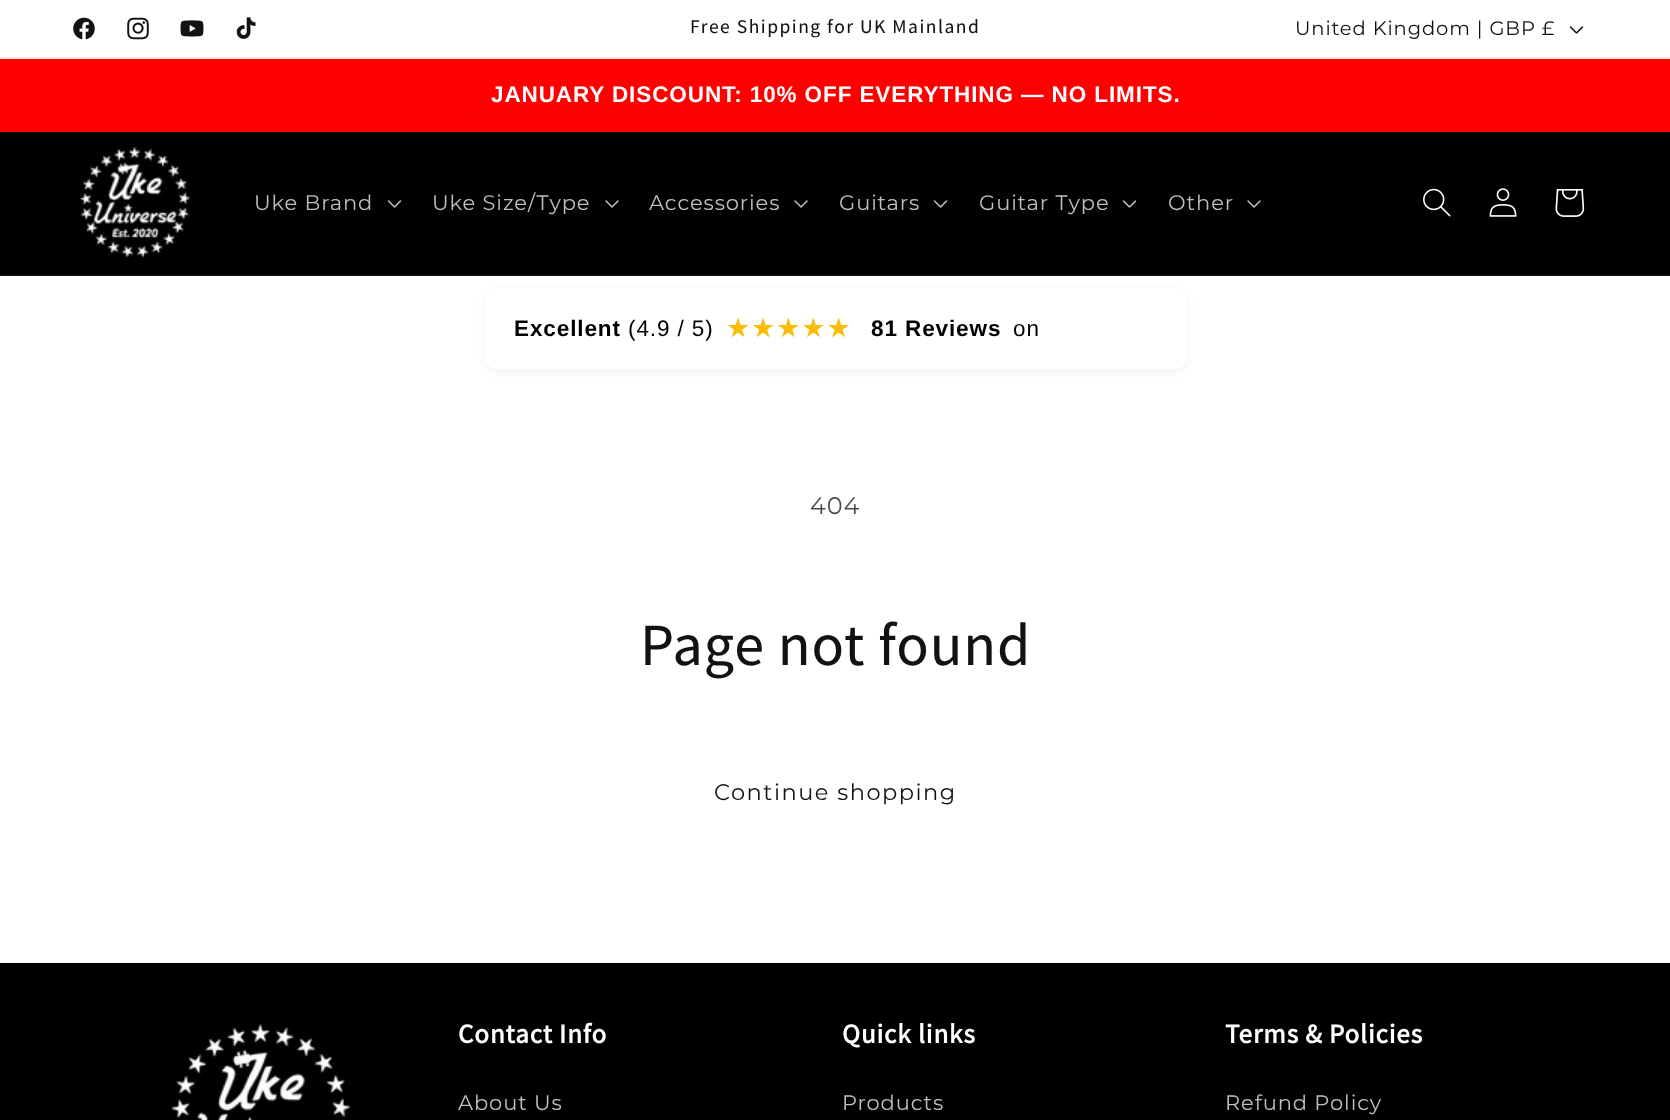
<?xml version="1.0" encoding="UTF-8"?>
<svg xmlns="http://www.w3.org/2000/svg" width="1670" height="1120">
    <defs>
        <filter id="blur1" x="-50%" y="-200%" width="200%" height="500%"><feGaussianBlur stdDeviation="4.5"/></filter>
    </defs>
    <rect width="100%" height="100%" fill="#FFFFFF"/>
    <rect x="0" y="57" width="1670" height="2" fill="#ECECEC"/>
    <image x="73" y="17" width="22" height="23" href="img_01.png"/>
    <image x="127" y="17" width="22" height="23" href="img_02.png"/>
    <image x="180" y="20" width="24" height="17" href="img_03.png"/>
    <image x="236" y="17" width="20" height="22" href="img_04.png"/>
    <text x="690" y="33" font-family="Assistant" font-size="19.5" font-weight="500" letter-spacing="1.5" fill="#121212">Free Shipping for UK Mainland</text>
    <text x="1295" y="35" font-family="Montserrat" font-size="19.5" letter-spacing="0.9" fill="#121212">United Kingdom | GBP £</text>
    <image x="1569" y="26" width="15" height="8" href="img_05.png"/>
    <rect x="0" y="59" width="1670" height="73" fill="#FF0000"/>
    <rect x="461" y="77" width="750" height="40" rx="12" fill="#000000" fill-opacity="0.05" filter="url(#blur1)"/>
    <rect x="461" y="74" width="750" height="40" rx="12" fill="#FF0000"/>
    <text x="491" y="102" font-family="Liberation Sans" font-size="22.5" font-weight="700" letter-spacing="0.9" fill="#FFFFFF">JANUARY DISCOUNT: 10% OFF EVERYTHING — NO LIMITS.</text>
    <rect x="0" y="132" width="1670" height="143" fill="#000000"/>
    <rect x="0" y="275" width="1670" height="1" fill="#141414"/>
    <image x="79" y="143" width="112" height="115" href="img_06.png"/>
    <text x="254" y="210" font-family="Montserrat" font-size="21" letter-spacing="0.9" fill="#BFBFBF">Uke Brand</text>
    <image x="387" y="200" width="15" height="8" href="img_07.png"/>
    <text x="432" y="210" font-family="Montserrat" font-size="21" letter-spacing="0.9" fill="#BFBFBF">Uke Size/Type</text>
    <image x="605" y="200" width="14" height="8" href="img_08.png"/>
    <text x="649" y="210" font-family="Montserrat" font-size="21" letter-spacing="0.9" fill="#BFBFBF">Accessories</text>
    <image x="794" y="200" width="14" height="8" href="img_08.png"/>
    <text x="839" y="210" font-family="Montserrat" font-size="21" letter-spacing="0.9" fill="#BFBFBF">Guitars</text>
    <image x="933" y="200" width="15" height="8" href="img_07.png"/>
    <text x="979" y="210" font-family="Montserrat" font-size="21" letter-spacing="0.9" fill="#BFBFBF">Guitar Type</text>
    <image x="1122" y="200" width="15" height="8" href="img_07.png"/>
    <text x="1168" y="210" font-family="Montserrat" font-size="21" letter-spacing="0.9" fill="#BFBFBF">Other</text>
    <image x="1247" y="200" width="14" height="8" href="img_08.png"/>
    <image x="1423" y="188" width="28" height="29" href="img_09.png"/>
    <image x="1489" y="188" width="28" height="29" href="img_10.png"/>
    <image x="1555" y="189" width="30" height="28" href="img_11.png"/>
    <rect x="485" y="291" width="702" height="81" rx="12" fill="#000000" fill-opacity="0.05" filter="url(#blur1)"/>
    <rect x="485" y="288" width="702" height="81" rx="12" fill="#FFFFFF"/>
    <text x="514" y="336" font-family="Liberation Sans" font-size="22.5" font-weight="700" letter-spacing="0.9" fill="#000000">Excellent</text>
    <text x="628" y="336" font-family="Liberation Sans" font-size="22.5" letter-spacing="0.9" fill="#000000">(4.9 / 5)</text>
    <text x="726" y="337" font-family="DejaVu Sans" font-size="27" letter-spacing="0.9" fill="#FBBC04">★★★★★</text>
    <text x="871" y="336" font-family="Liberation Sans" font-size="22.5" font-weight="700" letter-spacing="0.9" fill="#000000">81 Reviews</text>
    <text x="1013" y="336" font-family="Liberation Sans" font-size="22.5" letter-spacing="0.9" fill="#000000">on</text>
    <text x="810" y="514" font-family="Montserrat" font-size="24" letter-spacing="0.9" fill="#4D4D4D">404</text>
    <text x="640" y="665" font-family="Assistant" font-size="60" font-weight="500" letter-spacing="0.9" fill="#121212">Page not found</text>
    <text x="714" y="800" font-family="Montserrat" font-size="22.5" letter-spacing="1.5" fill="#121212">Continue shopping</text>
    <rect x="0" y="963" width="1670" height="157" fill="#000000"/>
    <image x="171" y="1024" width="180" height="96" href="img_12.png"/>
    <text x="458" y="1043" font-family="Assistant" font-size="27" font-weight="700" letter-spacing="0.9" fill="#FFFFFF">Contact Info</text>
    <text x="458" y="1110" font-family="Montserrat" font-size="21" letter-spacing="0.9" fill="#BFBFBF">About Us</text>
    <text x="842" y="1043" font-family="Assistant" font-size="27" font-weight="700" letter-spacing="0.9" fill="#FFFFFF">Quick links</text>
    <text x="842" y="1110" font-family="Montserrat" font-size="21" letter-spacing="0.9" fill="#BFBFBF">Products</text>
    <text x="1225" y="1043" font-family="Assistant" font-size="27" font-weight="700" letter-spacing="0.9" fill="#FFFFFF">Terms &amp; Policies</text>
    <text x="1225" y="1110" font-family="Montserrat" font-size="21" letter-spacing="0.9" fill="#BFBFBF">Refund Policy</text>
</svg>
